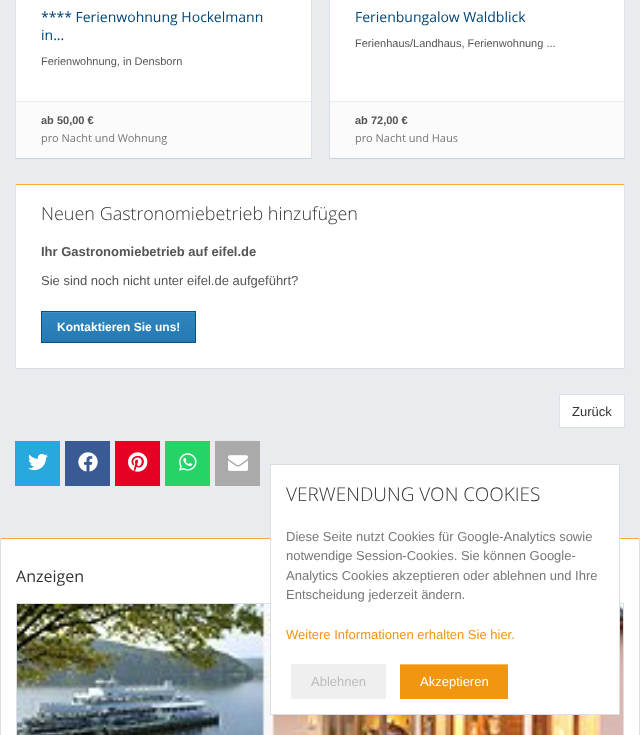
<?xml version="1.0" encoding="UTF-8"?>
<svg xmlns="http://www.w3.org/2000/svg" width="640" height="735">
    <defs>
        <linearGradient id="g1" gradientUnits="userSpaceOnUse" x1="119" y1="312" x2="119" y2="342"><stop offset="0" stop-color="#3086BD"/><stop offset="1" stop-color="#2579B3"/></linearGradient>
    </defs>
    <rect width="100%" height="100%" fill="#EAEBEE"/>
    <rect x="16" y="0" width="295" height="101" fill="#FFFFFF"/>
    <rect x="311" y="0" width="1" height="159" fill="#DBE1E9"/>
    <rect x="15" y="158" width="297" height="1" fill="#C9D1DB"/>
    <rect x="15" y="0" width="1" height="159" fill="#DBE1E9"/>
    <text font-family="Open Sans" font-size="14" fill="#014675">
        <tspan x="41" y="22">**** Ferienwohnung Hockelmann</tspan>
        <tspan x="41" y="40">in...</tspan>
    </text>
    <text x="41" y="65" font-family="Liberation Sans" font-size="11" fill="#555555">Ferienwohnung, in Densborn</text>
    <rect x="16" y="102" width="295" height="56" fill="#FBFBFB"/>
    <rect x="16" y="101" width="295" height="1" fill="#E6EBF3"/>
    <text x="41" y="124" font-family="Liberation Sans" font-size="11" font-weight="700" fill="#555555">ab 50,00 €</text>
    <text x="41" y="142" font-family="Open Sans" font-size="11" fill="#777777">pro Nacht und Wohnung</text>
    <rect x="330" y="0" width="294" height="101" fill="#FFFFFF"/>
    <rect x="624" y="0" width="1" height="159" fill="#DBE1E9"/>
    <rect x="329" y="158" width="296" height="1" fill="#C9D1DB"/>
    <rect x="329" y="0" width="1" height="159" fill="#DBE1E9"/>
    <text x="355" y="22" font-family="Open Sans" font-size="14" fill="#014675">Ferienbungalow Waldblick</text>
    <text x="355" y="47" font-family="Liberation Sans" font-size="11" fill="#555555">Ferienhaus/Landhaus, Ferienwohnung ...</text>
    <rect x="330" y="102" width="294" height="56" fill="#FBFBFB"/>
    <rect x="330" y="101" width="294" height="1" fill="#E6EBF3"/>
    <text x="355" y="124" font-family="Liberation Sans" font-size="11" font-weight="700" fill="#555555">ab 72,00 €</text>
    <text x="355" y="142" font-family="Open Sans" font-size="11" fill="#777777">pro Nacht und Haus</text>
    <rect x="16" y="185" width="608" height="183" fill="#FFFFFF"/>
    <rect x="15" y="184" width="610" height="1" fill="#FAA932"/>
    <rect x="624" y="184" width="1" height="185" fill="#DBE1E9"/>
    <rect x="15" y="368" width="610" height="1" fill="#D8DDE5"/>
    <rect x="15" y="184" width="1" height="185" fill="#DBE1E9"/>
    <text x="41" y="220" font-family="Open Sans" font-size="18" font-weight="300" fill="#333333">Neuen Gastronomiebetrieb hinzufügen</text>
    <text x="41" y="256" font-family="Liberation Sans" font-size="13" font-weight="700" fill="#555555">Ihr Gastronomiebetrieb auf eifel.de</text>
    <text x="41" y="285" font-family="Liberation Sans" font-size="13" fill="#555555">Sie sind noch nicht unter eifel.de aufgeführt?</text>
    <rect x="42" y="313" width="153" height="29" fill="url(#g1)"/>
    <rect x="42" y="312" width="153" height="1" fill="#3D92CD"/>
    <rect x="41.5" y="311.5" width="154" height="31" fill="none" stroke="#0A5284"/>
    <text x="57" y="331" font-family="Liberation Sans" font-size="12" font-weight="700" fill="#FFFFFF">Kontaktieren Sie uns!</text>
    <rect x="559.5" y="394.5" width="65" height="33" fill="#FFFFFF" stroke="#DBE1E9"/>
    <text x="572" y="416" font-family="Liberation Sans" font-size="13" fill="#333333">Zurück</text>
    <rect x="15" y="441" width="45" height="45" fill="#27A9DD"/>
    <image x="28" y="453" width="20" height="18" href="img_01.png"/>
    <rect x="65" y="441" width="45" height="45" fill="#3A5A93"/>
    <image x="78" y="452" width="20" height="20" href="img_02.png"/>
    <rect x="115" y="441" width="45" height="45" fill="#E60023"/>
    <image x="128" y="452" width="20" height="20" href="img_03.png"/>
    <rect x="165" y="441" width="45" height="45" fill="#25D366"/>
    <image x="179" y="453" width="18" height="18" href="img_04.png"/>
    <rect x="215" y="441" width="45" height="45" fill="#AAAAAA"/>
    <image x="228" y="455" width="20" height="16" href="img_05.png"/>
    <rect x="1" y="539" width="638" height="196" fill="#FFFFFF"/>
    <rect x="0" y="538" width="640" height="1" fill="#FAA932"/>
    <rect x="639" y="538" width="1" height="197" fill="#DCDFE6"/>
    <rect x="0" y="538" width="1" height="197" fill="#DCDFE6"/>
    <text x="16" y="582" font-family="Open Sans" font-size="16" fill="#333333">Anzeigen</text>
    <rect x="16.5" y="603.5" width="607" height="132" fill="none" stroke="#DCDFE6"/>
    <image x="17" y="604" width="606" height="131" href="img_06.png"/>
    <rect x="270.5" y="464.5" width="349" height="250" fill="#FFFFFF" stroke="#DCDFE6"/>
    <text x="286" y="501" font-family="Open Sans" font-size="19" font-weight="300" fill="#333333">VERWENDUNG VON COOKIES</text>
    <text font-family="Liberation Sans" font-size="13" fill="#777777">
        <tspan x="286" y="541">Diese Seite nutzt Cookies für Google-Analytics sowie</tspan>
        <tspan x="286" y="560">notwendige Session-Cookies. Sie können Google-</tspan>
        <tspan x="286" y="580">Analytics Cookies akzeptieren oder ablehnen und Ihre</tspan>
        <tspan x="286" y="599">Entscheidung jederzeit ändern.</tspan>
    </text>
    <text x="286" y="639" font-family="Liberation Sans" font-size="13" fill="#F29510">Weitere Informationen erhalten Sie hier.</text>
    <rect x="291" y="664" width="95" height="35" fill="#EFEFEF"/>
    <text x="311" y="686" font-family="Liberation Sans" font-size="13" fill="#BBBBBB">Ablehnen</text>
    <rect x="400" y="665" width="108" height="34" fill="#F29510"/>
    <rect x="400" y="664" width="108" height="1" fill="#F7BB58"/>
    <text x="420" y="686" font-family="Liberation Sans" font-size="13" fill="#FFFFFF">Akzeptieren</text>
</svg>
